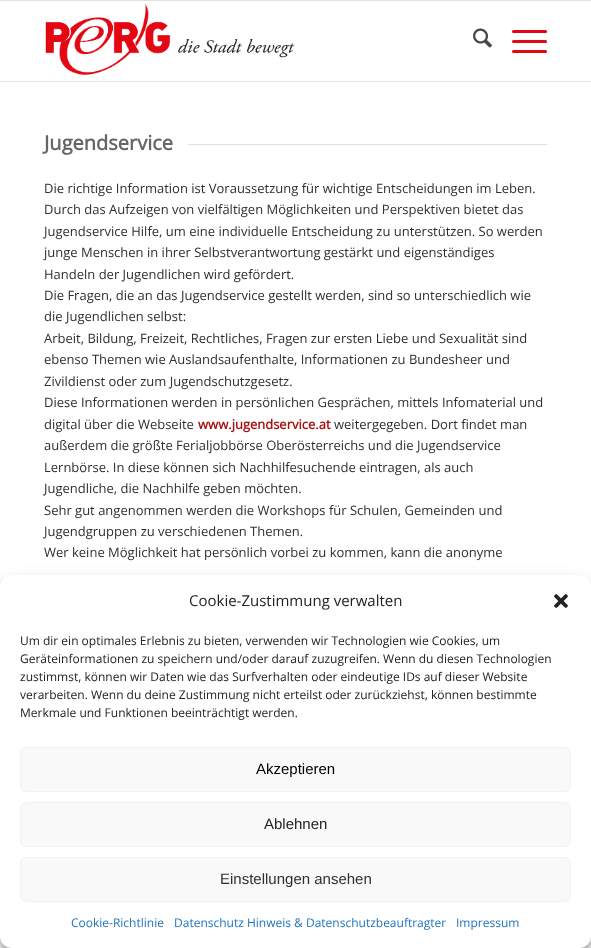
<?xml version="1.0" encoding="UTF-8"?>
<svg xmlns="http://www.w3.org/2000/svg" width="591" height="948">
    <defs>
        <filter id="blur1" x="-50%" y="-200%" width="200%" height="500%"><feGaussianBlur stdDeviation="3"/></filter>
        <filter id="blur2" x="-50%" y="-200%" width="200%" height="500%"><feGaussianBlur stdDeviation="10"/></filter>
    </defs>
    <rect width="100%" height="100%" fill="#FFFFFF"/>
    <rect x="0" y="0" width="591" height="1" fill="#E1E1E1"/>
    <rect x="0" y="81" width="591" height="1" fill="#E1E1E1"/>
    <image x="45" y="4" width="250" height="71" href="img_01.png"/>
    <image x="473" y="28" width="19" height="20" href="img_02.png"/>
    <rect x="512" y="40" width="35" height="3" rx="1.5" fill="#E30615"/>
    <rect x="512" y="30" width="35" height="3" rx="1.5" fill="#E30615"/>
    <rect x="512" y="50" width="35" height="3" rx="1.5" fill="#E30615"/>
    <text x="44" y="150" font-family="Open Sans" font-size="20" font-weight="700" fill="#666666">Jugendservice</text>
    <rect x="188" y="144" width="359" height="1" fill="#E0E0E0"/>
    <text font-family="Open Sans" font-size="13" fill="#302F30">
        <tspan x="44" y="193">Die richtige Information ist Voraussetzung für wichtige Entscheidungen im Leben.</tspan>
        <tspan x="44" y="214">Durch das Aufzeigen von vielfältigen Möglichkeiten und Perspektiven bietet das</tspan>
        <tspan x="44" y="236">Jugendservice Hilfe, um eine individuelle Entscheidung zu unterstützen. So werden</tspan>
        <tspan x="44" y="257">junge Menschen in ihrer Selbstverantwortung gestärkt und eigenständiges</tspan>
        <tspan x="44" y="279">Handeln der Jugendlichen wird gefördert.</tspan>
        <tspan x="44" y="300">Die Fragen, die an das Jugendservice gestellt werden, sind so unterschiedlich wie</tspan>
        <tspan x="44" y="321">die Jugendlichen selbst:</tspan>
        <tspan x="44" y="343">Arbeit, Bildung, Freizeit, Rechtliches, Fragen zur ersten Liebe und Sexualität sind</tspan>
        <tspan x="44" y="364">ebenso Themen wie Auslandsaufenthalte, Informationen zu Bundesheer und</tspan>
        <tspan x="44" y="386">Zivildienst oder zum Jugendschutzgesetz.</tspan>
        <tspan x="44" y="407">Diese Informationen werden in persönlichen Gesprächen, mittels Infomaterial und</tspan>
        <tspan x="44" y="429">digital über die Webseite</tspan>
    </text>
    <text x="198" y="429" font-family="Open Sans" font-size="13" font-weight="700" fill="#A81010">www.jugendservice.at</text>
    <text x="334" y="429" font-family="Open Sans" font-size="13" fill="#302F30">weitergegeben. Dort findet man</text>
    <text font-family="Open Sans" font-size="13" fill="#302F30">
        <tspan x="44" y="450">außerdem die größte Ferialjobbörse Oberösterreichs und die Jugendservice</tspan>
        <tspan x="44" y="472">Lernbörse. In diese können sich Nachhilfesuchende eintragen, als auch</tspan>
        <tspan x="44" y="493">Jugendliche, die Nachhilfe geben möchten.</tspan>
        <tspan x="44" y="515">Sehr gut angenommen werden die Workshops für Schulen, Gemeinden und</tspan>
        <tspan x="44" y="536">Jugendgruppen zu verschiedenen Themen.</tspan>
        <tspan x="44" y="557">Wer keine Möglichkeit hat persönlich vorbei zu kommen, kann die anonyme</tspan>
    </text>
    <rect x="0" y="581" width="591" height="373" rx="12" fill="#000000" fill-opacity="0.23" filter="url(#blur1)"/>
    <rect x="0" y="585" width="591" height="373" rx="12" fill="#000000" fill-opacity="0.19" filter="url(#blur2)"/>
    <rect x="0" y="575" width="591" height="373" rx="12" fill="#FFFFFF"/>
    <text x="189" y="606" font-family="Open Sans" font-size="15" fill="#222222">Cookie-Zustimmung verwalten</text>
    <image x="554" y="594" width="14" height="14" href="img_03.png"/>
    <text font-family="Open Sans" font-size="12" fill="#222222">
        <tspan x="20" y="645">Um dir ein optimales Erlebnis zu bieten, verwenden wir Technologien wie Cookies, um</tspan>
        <tspan x="20" y="663">Geräteinformationen zu speichern und/oder darauf zuzugreifen. Wenn du diesen Technologien</tspan>
        <tspan x="20" y="681">zustimmst, können wir Daten wie das Surfverhalten oder eindeutige IDs auf dieser Website</tspan>
        <tspan x="20" y="699">verarbeiten. Wenn du deine Zustimmung nicht erteilst oder zurückziehst, können bestimmte</tspan>
        <tspan x="20" y="717">Merkmale und Funktionen beeinträchtigt werden.</tspan>
    </text>
    <rect x="20.5" y="747.5" width="550" height="44" rx="5.5" fill="#F9F9F9" stroke="#F2F2F2"/>
    <text x="256" y="774" font-family="Liberation Sans" font-size="15" fill="#000000">Akzeptieren</text>
    <rect x="20.5" y="802.5" width="550" height="44" rx="5.5" fill="#F9F9F9" stroke="#F2F2F2"/>
    <text x="264" y="829" font-family="Liberation Sans" font-size="15" fill="#222222">Ablehnen</text>
    <rect x="20.5" y="857.5" width="550" height="44" rx="5.5" fill="#F9F9F9" stroke="#F2F2F2"/>
    <text x="220" y="884" font-family="Liberation Sans" font-size="15" fill="#302F30">Einstellungen ansehen</text>
    <text x="71" y="927" font-family="Open Sans" font-size="12" fill="#1E73BE">Cookie-Richtlinie</text>
    <text x="174" y="927" font-family="Open Sans" font-size="12" fill="#1E73BE">Datenschutz Hinweis &amp; Datenschutzbeauftragter</text>
    <text x="456" y="927" font-family="Open Sans" font-size="12" fill="#1E73BE">Impressum</text>
</svg>
